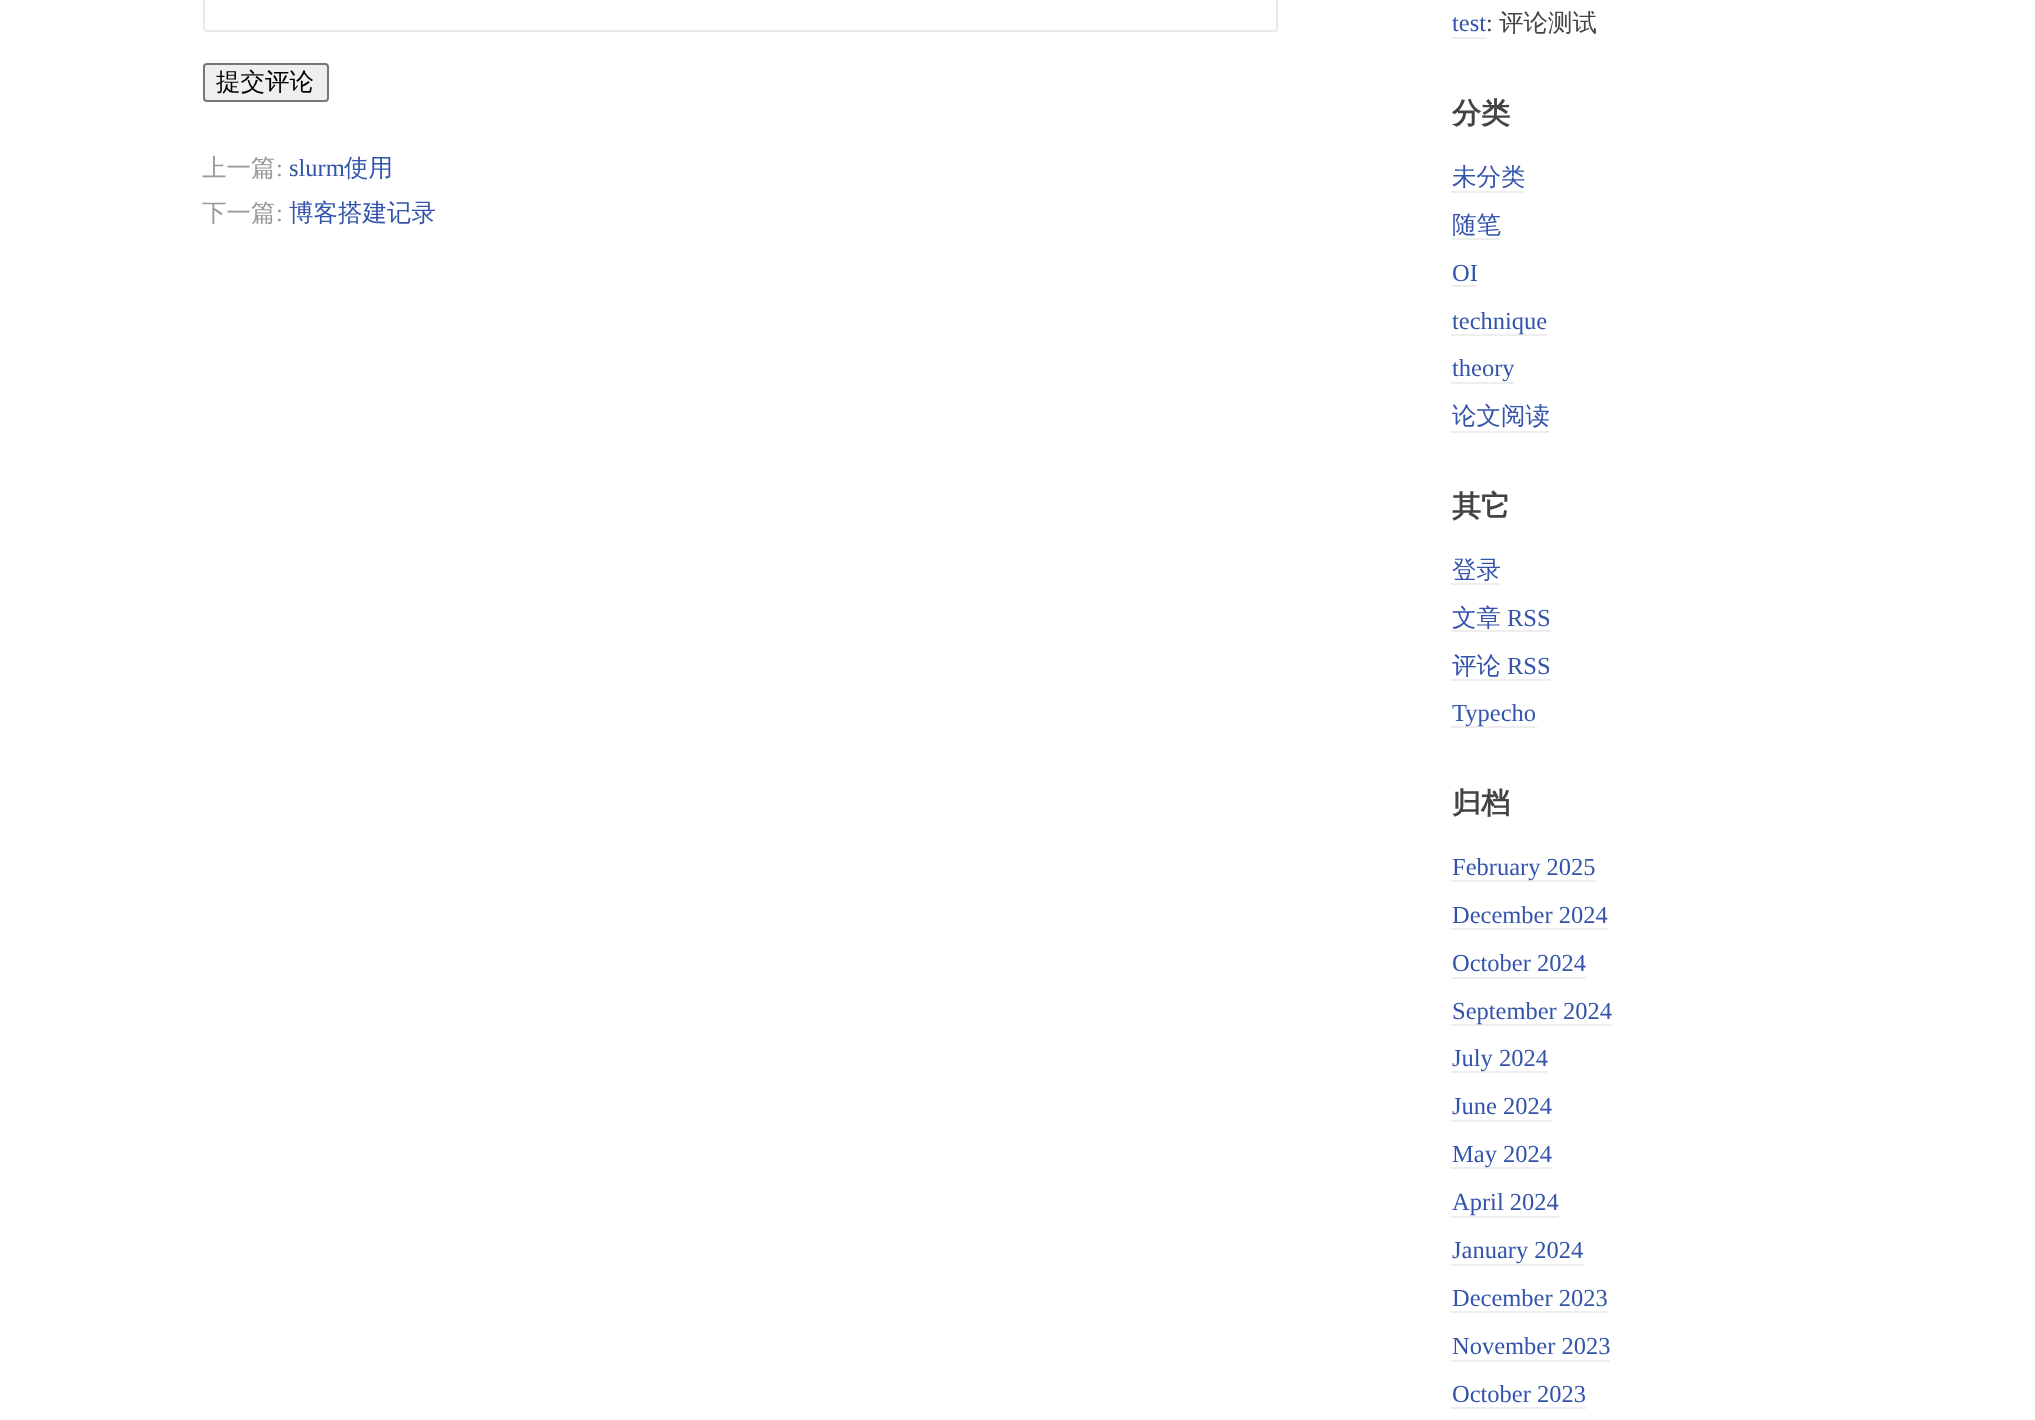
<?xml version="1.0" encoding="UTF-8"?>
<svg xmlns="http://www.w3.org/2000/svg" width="2035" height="1420">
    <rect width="100%" height="100%" fill="#FFFFFF"/>
    <rect x="204" y="-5" width="1073" height="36" rx="3" fill="none" stroke="#E9E9E9" stroke-width="2"/>
    <rect x="204" y="64" width="124" height="37" rx="3" fill="#EFEFEF" stroke="#767676" stroke-width="2"/>
    <text x="216" y="90" font-family="WenQuanYi Zen Hei" font-size="24.5" font-weight="500" fill="#000000">提交评论</text>
    <text x="202" y="176" font-family="WenQuanYi Zen Hei" font-size="24.5" font-weight="500" fill="#999999">上一篇</text>
    <text x="276" y="176" font-family="Liberation Serif" font-size="24.5" fill="#999999">:</text>
    <text x="289" y="176" font-family="Liberation Serif" font-size="24.5" fill="#3354AA">slurm</text>
    <text x="344" y="176" font-family="WenQuanYi Zen Hei" font-size="24.5" font-weight="500" fill="#3354AA">使用</text>
    <text x="202" y="221" font-family="WenQuanYi Zen Hei" font-size="24.5" font-weight="500" fill="#999999">下一篇</text>
    <text x="276" y="221" font-family="Liberation Serif" font-size="24.5" fill="#999999">:</text>
    <text x="289" y="221" font-family="WenQuanYi Zen Hei" font-size="24.5" font-weight="500" fill="#3354AA">博客搭建记录</text>
    <text x="1452" y="31" font-family="Liberation Serif" font-size="24.5" fill="#3354AA">test</text>
    <rect x="1451" y="37" width="35" height="2" fill="#EEEEEE"/>
    <text x="1486" y="31" font-family="Liberation Serif" font-size="24.5" fill="#444444">:</text>
    <text x="1499" y="31" font-family="WenQuanYi Zen Hei" font-size="24.5" font-weight="500" fill="#444444">评论测试</text>
    <text x="1452" y="123" font-family="WenQuanYi Zen Hei" font-size="29" font-weight="700" fill="#444444">分类</text>
    <text x="1452" y="185" font-family="WenQuanYi Zen Hei" font-size="24.5" font-weight="500" fill="#3354AA">未分类</text>
    <rect x="1451" y="191" width="73" height="2" fill="#EEEEEE"/>
    <text x="1452" y="233" font-family="WenQuanYi Zen Hei" font-size="24.5" font-weight="500" fill="#3354AA">随笔</text>
    <rect x="1451" y="238" width="49" height="2" fill="#EEEEEE"/>
    <text x="1452" y="281" font-family="Liberation Serif" font-size="24.5" fill="#3354AA">OI</text>
    <rect x="1451" y="285" width="26" height="2" fill="#EEEEEE"/>
    <rect x="1451" y="334" width="96" height="2" fill="#EEEEEE"/>
    <text font-family="Liberation Serif" font-size="24.5" fill="#3354AA">
        <tspan x="1452" y="329">technique</tspan>
        <tspan x="1452" y="376">theory</tspan>
    </text>
    <rect x="1451" y="382" width="63" height="2" fill="#EEEEEE"/>
    <text x="1452" y="424" font-family="WenQuanYi Zen Hei" font-size="24.5" font-weight="500" fill="#3354AA">论文阅读</text>
    <rect x="1451" y="431" width="98" height="2" fill="#EEEEEE"/>
    <text x="1452" y="516" font-family="WenQuanYi Zen Hei" font-size="29" font-weight="700" fill="#444444">其它</text>
    <text x="1452" y="578" font-family="WenQuanYi Zen Hei" font-size="24.5" font-weight="500" fill="#3354AA">登录</text>
    <rect x="1451" y="583" width="49" height="2" fill="#EEEEEE"/>
    <text x="1452" y="626" font-family="WenQuanYi Zen Hei" font-size="24.5" font-weight="500" fill="#3354AA">文章</text>
    <text x="1507" y="626" font-family="Liberation Serif" font-size="24.5" fill="#3354AA">RSS</text>
    <rect x="1451" y="630" width="100" height="2" fill="#EEEEEE"/>
    <text x="1452" y="674" font-family="WenQuanYi Zen Hei" font-size="24.5" font-weight="500" fill="#3354AA">评论</text>
    <text x="1507" y="674" font-family="Liberation Serif" font-size="24.5" fill="#3354AA">RSS</text>
    <rect x="1451" y="679" width="100" height="2" fill="#EEEEEE"/>
    <rect x="1451" y="726" width="86" height="2" fill="#EEEEEE"/>
    <text x="1452" y="721" font-family="Liberation Serif" font-size="24.5" fill="#3354AA">Typecho</text>
    <text x="1452" y="813" font-family="WenQuanYi Zen Hei" font-size="29" font-weight="700" fill="#444444">归档</text>
    <rect x="1451" y="880" width="145" height="2" fill="#EEEEEE"/>
    <text font-family="Liberation Serif" font-size="24.5" fill="#3354AA">
        <tspan x="1452" y="875">February 2025</tspan>
        <tspan x="1452" y="923">December 2024</tspan>
    </text>
    <rect x="1451" y="928" width="157" height="2" fill="#EEEEEE"/>
    <text x="1452" y="971" font-family="Liberation Serif" font-size="24.5" fill="#3354AA">October 2024</text>
    <rect x="1451" y="977" width="135" height="2" fill="#EEEEEE"/>
    <rect x="1451" y="1024" width="161" height="2" fill="#EEEEEE"/>
    <text x="1452" y="1019" font-family="Liberation Serif" font-size="24.5" fill="#3354AA">September 2024</text>
    <rect x="1451" y="1071" width="96" height="2" fill="#EEEEEE"/>
    <text font-family="Liberation Serif" font-size="24.5" fill="#3354AA">
        <tspan x="1452" y="1066">July 2024</tspan>
        <tspan x="1452" y="1114">June 2024</tspan>
    </text>
    <rect x="1451" y="1120" width="101" height="2" fill="#EEEEEE"/>
    <rect x="1451" y="1167" width="101" height="2" fill="#EEEEEE"/>
    <text font-family="Liberation Serif" font-size="24.5" fill="#3354AA">
        <tspan x="1452" y="1162">May 2024</tspan>
        <tspan x="1452" y="1210">April 2024</tspan>
    </text>
    <rect x="1451" y="1216" width="108" height="2" fill="#EEEEEE"/>
    <text x="1452" y="1258" font-family="Liberation Serif" font-size="24.5" fill="#3354AA">January 2024</text>
    <rect x="1451" y="1264" width="133" height="2" fill="#EEEEEE"/>
    <text x="1452" y="1306" font-family="Liberation Serif" font-size="24.5" fill="#3354AA">December 2023</text>
    <rect x="1451" y="1311" width="157" height="2" fill="#EEEEEE"/>
    <text x="1452" y="1354" font-family="Liberation Serif" font-size="24.5" fill="#3354AA">November 2023</text>
    <rect x="1451" y="1360" width="159" height="2" fill="#EEEEEE"/>
    <text x="1452" y="1402" font-family="Liberation Serif" font-size="24.5" fill="#3354AA">October 2023</text>
    <rect x="1451" y="1407" width="135" height="2" fill="#EEEEEE"/>
</svg>
